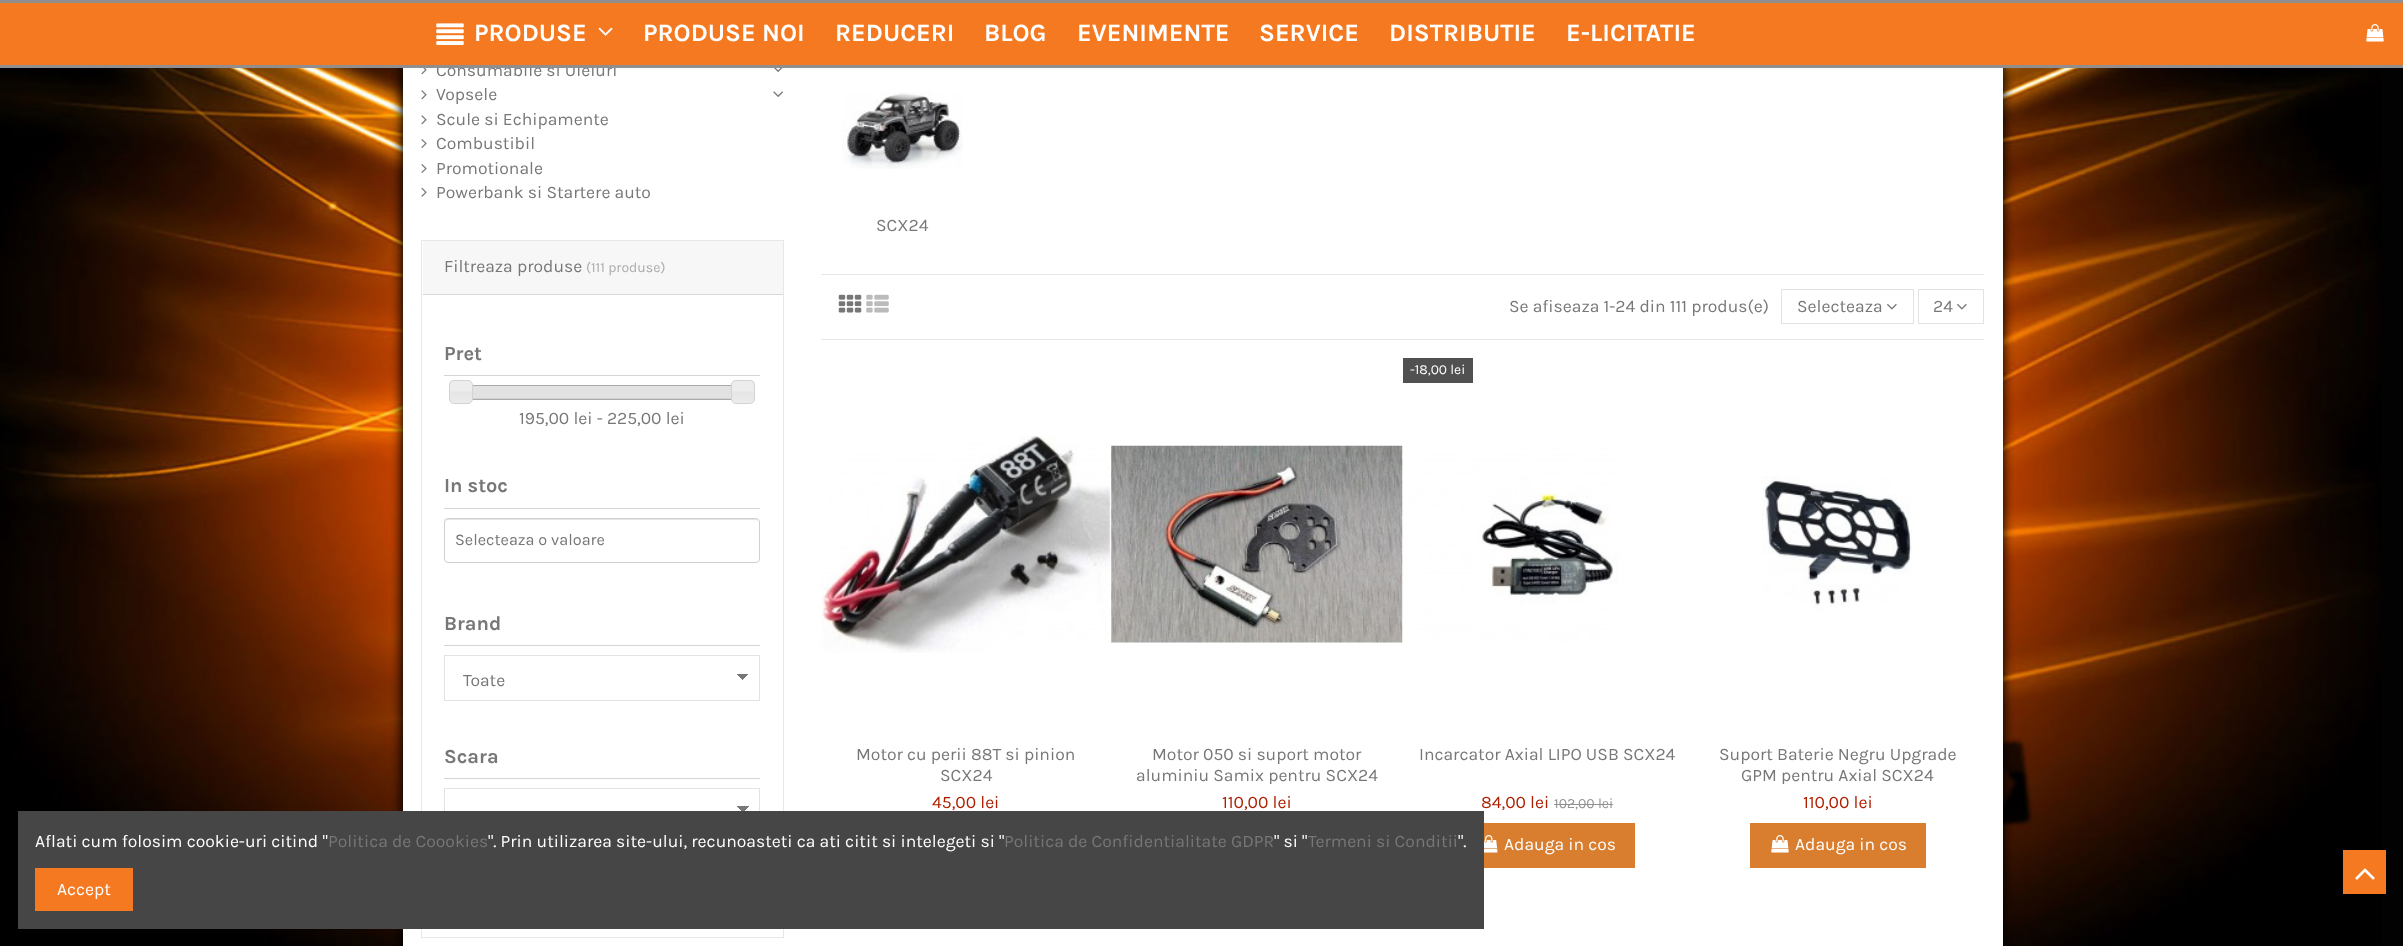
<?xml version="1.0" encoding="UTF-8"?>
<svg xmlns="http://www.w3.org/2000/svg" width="2403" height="946">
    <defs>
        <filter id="blur1" x="-50%" y="-200%" width="200%" height="500%"><feGaussianBlur stdDeviation="5.5"/></filter>
        <linearGradient id="g1" gradientUnits="userSpaceOnUse" x1="743" y1="674" x2="749" y2="680"><stop offset="0.5" stop-color="#777777"/><stop offset="0.5" stop-color="#FFFFFF"/></linearGradient>
        <linearGradient id="g2" gradientUnits="userSpaceOnUse" x1="736" y1="680" x2="743" y2="674"><stop offset="0.5" stop-color="#FFFFFF"/><stop offset="0.5" stop-color="#777777"/></linearGradient>
        <linearGradient id="g3" gradientUnits="userSpaceOnUse" x1="743" y1="806" x2="749" y2="813"><stop offset="0.5" stop-color="#777777"/><stop offset="0.5" stop-color="#FFFFFF"/></linearGradient>
        <linearGradient id="g4" gradientUnits="userSpaceOnUse" x1="736" y1="813" x2="743" y2="806"><stop offset="0.5" stop-color="#FFFFFF"/><stop offset="0.5" stop-color="#777777"/></linearGradient>
        <clipPath id="clip1"><rect x="1124" y="745" width="266" height="39"/></clipPath>
        <clipPath id="clip2"><rect x="1705" y="745" width="266" height="39"/></clipPath>
    </defs>
    <rect width="100%" height="100%" fill="#020202"/>
    <image x="0" y="68" width="2381" height="878" href="img_01.png"/>
    <rect x="401" y="-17" width="1603" height="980" fill="#000000" filter="url(#blur1)"/>
    <rect x="403" y="68" width="1600" height="878" fill="#FFFFFF"/>
    <text x="436" y="76" font-family="Karla" font-size="17.5" fill="#777777">Consumabile si Uleiuri</text>
    <rect x="0" y="3" width="2403" height="62" fill="#F57921"/>
    <rect x="0" y="0" width="2403" height="3" fill="#908E8E"/>
    <rect x="0" y="65" width="2403" height="3" fill="#908E8E"/>
    <image x="436" y="23" width="28" height="22" href="img_02.png"/>
    <text x="474" y="41" font-family="Karla" font-size="25" font-weight="700" fill="#FFFFFF">PRODUSE</text>
    <image x="598" y="27" width="15" height="9" href="img_03.png"/>
    <text x="643" y="41" font-family="Karla" font-size="25" font-weight="700" fill="#FFFFFF">PRODUSE NOI</text>
    <text x="835" y="41" font-family="Karla" font-size="25" font-weight="700" fill="#FFFFFF">REDUCERI</text>
    <text x="984" y="41" font-family="Karla" font-size="25" font-weight="700" fill="#FFFFFF">BLOG</text>
    <text x="1077" y="41" font-family="Karla" font-size="25" font-weight="700" fill="#FFFFFF">EVENIMENTE</text>
    <text x="1259" y="41" font-family="Karla" font-size="25" font-weight="700" fill="#FFFFFF">SERVICE</text>
    <text x="1389" y="41" font-family="Karla" font-size="25" font-weight="700" fill="#FFFFFF">DISTRIBUTIE</text>
    <text x="1566" y="41" font-family="Karla" font-size="25" font-weight="700" fill="#FFFFFF">E-LICITATIE</text>
    <image x="2366" y="24" width="18" height="18" href="img_04.png"/>
    <image x="421" y="68" width="6" height="7" href="img_05.png"/>
    <image x="774" y="68" width="9" height="4" href="img_06.png"/>
    <image x="421" y="90" width="6" height="10" href="img_07.png"/>
    <text x="436" y="100" font-family="Karla" font-size="17.5" fill="#777777">Vopsele</text>
    <image x="773" y="91" width="10" height="6" href="img_08.png"/>
    <image x="421" y="115" width="6" height="10" href="img_07.png"/>
    <text x="436" y="125" font-family="Karla" font-size="17.5" fill="#777777">Scule si Echipamente</text>
    <image x="421" y="139" width="6" height="9" href="img_09.png"/>
    <text x="436" y="149" font-family="Karla" font-size="17.5" fill="#777777">Combustibil</text>
    <image x="421" y="164" width="6" height="9" href="img_09.png"/>
    <text x="436" y="174" font-family="Karla" font-size="17.5" fill="#777777">Promotionale</text>
    <image x="421" y="187" width="6" height="10" href="img_10.png"/>
    <text x="436" y="198" font-family="Karla" font-size="17.5" fill="#777777">Powerbank si Startere auto</text>
    <rect x="421.5" y="240.5" width="362" height="697" fill="none" stroke="#E7E7E7"/>
    <rect x="423" y="241" width="360" height="53" fill="#F7F7F7"/>
    <rect x="423" y="294" width="360" height="1" fill="#D8D8D8"/>
    <text x="444" y="272" font-family="Karla" font-size="17.5" fill="#777777">Filtreaza produse</text>
    <text x="586" y="272" font-family="Karla" font-size="14" fill="#AAAAAA">(111 produse)</text>
    <rect x="444" y="375" width="316" height="1" fill="#D6D4D4"/>
    <text x="444" y="360" font-family="Karla" font-size="20" font-weight="700" fill="#777777">Pret</text>
    <rect x="460.5" y="385.5" width="283" height="14" fill="none" stroke="#AAAAAA"/>
    <image x="449" y="380" width="23" height="23" href="img_11.png"/>
    <rect x="449.5" y="380.5" width="23" height="23" rx="4.5" fill="none" stroke="#D3D3D3"/>
    <rect x="473" y="398" width="258" height="1" fill="#CCCCCC"/>
    <image x="473" y="386" width="258" height="13" href="img_12.png"/>
    <image x="732" y="380" width="23" height="23" href="img_13.png"/>
    <rect x="731.5" y="380.5" width="23" height="23" rx="4.5" fill="none" stroke="#D3D3D3"/>
    <text x="519" y="424" font-family="Karla" font-size="17.5" fill="#777777">195,00 lei - 225,00 lei</text>
    <rect x="444" y="508" width="316" height="1" fill="#D6D4D4"/>
    <text x="444" y="492" font-family="Karla" font-size="20" font-weight="700" fill="#777777">In stoc</text>
    <path d="M 448 520 H 756 C 758 520 759 521 759 522 C 759 520 758 519 756 519 H 448 C 446 519 445 520 445 522 C 445 521 446 520 448 520 Z" fill="#E6E6E6"/>
    <rect x="444.5" y="518.5" width="315" height="44" rx="3.5" fill="none" stroke="#D0D0D0"/>
    <text x="455" y="545" font-family="Karla" font-size="16.25" fill="#777777">Selecteaza o valoare</text>
    <rect x="444" y="645" width="316" height="1" fill="#D6D4D4"/>
    <text x="444" y="630" font-family="Karla" font-size="20" font-weight="700" fill="#777777">Brand</text>
    <rect x="743" y="674" width="6" height="5" fill="url(#g1)"/>
    <rect x="736" y="674" width="7" height="6" fill="url(#g2)"/>
    <rect x="444.5" y="655.5" width="315" height="45" fill="none" stroke="#E3E3E3"/>
    <text x="463" y="686" font-family="Karla" font-size="17.5" fill="#777777">Toate</text>
    <rect x="444" y="778" width="316" height="1" fill="#D6D4D4"/>
    <text x="444" y="763" font-family="Karla" font-size="20" font-weight="700" fill="#777777">Scara</text>
    <rect x="743" y="806" width="6" height="7" fill="url(#g3)"/>
    <rect x="736" y="806" width="7" height="5" fill="url(#g4)"/>
    <rect x="444.5" y="788.5" width="315" height="45" fill="none" stroke="#E3E3E3"/>
    <image x="841" y="92" width="122" height="77" href="img_14.png"/>
    <text x="876" y="231" font-family="Karla" font-size="17.5" fill="#777777">SCX24</text>
    <rect x="821" y="274" width="1163" height="1" fill="#E7E7E7"/>
    <rect x="821" y="339" width="1163" height="1" fill="#E7E7E7"/>
    <image x="838" y="294" width="24" height="19" href="img_15.png"/>
    <image x="866" y="294" width="23" height="19" href="img_16.png"/>
    <text x="1509" y="312" font-family="Karla" font-size="17.5" fill="#777777">Se afiseaza 1-24 din 111 produs(e)</text>
    <rect x="1781.5" y="289.5" width="132" height="34" fill="none" stroke="#E3E3E3"/>
    <text x="1797" y="312" font-family="Karla" font-size="17.5" fill="#777777">Selecteaza</text>
    <image x="1887" y="303" width="10" height="7" href="img_17.png"/>
    <rect x="1918.5" y="289.5" width="65" height="34" fill="none" stroke="#E3E3E3"/>
    <text x="1933" y="312" font-family="Karla" font-size="17.5" fill="#777777">24</text>
    <image x="1957" y="303" width="10" height="7" href="img_17.png"/>
    <image x="821" y="435" width="290" height="218" href="img_18.png"/>
    <text x="856" y="760" font-family="Karla" font-size="17.5" fill="#777777">Motor cu perii 88T si pinion</text>
    <text x="940" y="781" font-family="Karla" font-size="17.5" fill="#777777">SCX24</text>
    <text x="932" y="808" font-family="Karla" font-size="17.5" fill="#AD1F00">45,00 lei</text>
    <image x="1111" y="445" width="292" height="198" href="img_19.png"/>
    <text x="1152" y="760" font-family="Karla" font-size="17.5" fill="#777777">Motor 050 si suport motor</text>
    <g clip-path="url(#clip1)">
        <text x="1136" y="781" font-family="Karla" font-size="17.5" fill="#777777">aluminiu Samix pentru SCX24</text>
    </g>
    <text x="1222" y="808" font-family="Karla" font-size="17.5" fill="#AD1F00">110,00 lei</text>
    <rect x="1403" y="358" width="70" height="25" fill="#515151"/>
    <text x="1410" y="374" font-family="Karla" font-size="13.75" fill="#FFFFFF">-18,00 lei</text>
    <image x="1402" y="445" width="217" height="198" href="img_20.png"/>
    <text x="1419" y="760" font-family="Karla" font-size="17.5" fill="#777777">Incarcator Axial LIPO USB SCX24</text>
    <text x="1481" y="808" font-family="Karla" font-size="17.5" fill="#AD1F00">84,00 lei</text>
    <text x="1554" y="808" font-family="Karla" font-size="14" fill="#929292">102,00 lei</text>
    <rect x="1554" y="804" width="59" height="1" fill="#929292"/>
    <rect x="1484" y="823" width="151" height="45" fill="#D97D2F"/>
    <image x="1484" y="835" width="14" height="18" href="img_21.png"/>
    <text x="1504" y="850" font-family="Karla" font-size="17.5" fill="#FFFFFF">Adauga in cos</text>
    <image x="1762" y="476" width="150" height="136" href="img_22.png"/>
    <text x="1719" y="760" font-family="Karla" font-size="17.5" fill="#777777">Suport Baterie Negru Upgrade</text>
    <g clip-path="url(#clip2)">
        <text x="1741" y="781" font-family="Karla" font-size="17.5" fill="#777777">GPM pentru Axial SCX24</text>
    </g>
    <text x="1803" y="808" font-family="Karla" font-size="17.5" fill="#AD1F00">110,00 lei</text>
    <rect x="1750" y="823" width="176" height="45" fill="#D97D2F"/>
    <image x="1771" y="835" width="18" height="18" href="img_23.png"/>
    <text x="1795" y="850" font-family="Karla" font-size="17.5" fill="#FFFFFF">Adauga in cos</text>
    <rect x="18" y="811" width="1466" height="118" fill="#464646"/>
    <text x="35" y="847" font-family="Karla" font-size="17.5" fill="#FFFFFF">Aflati cum folosim cookie-uri citind "</text>
    <text x="328" y="847" font-family="Karla" font-size="17.5" fill="#777777">Politica de Coookies</text>
    <text x="488" y="847" font-family="Karla" font-size="17.5" fill="#FFFFFF">". Prin utilizarea site-ului, recunoasteti ca ati citit si intelegeti si "</text>
    <text x="1004" y="847" font-family="Karla" font-size="17.5" fill="#777777">Politica de Confidentialitate GDPR</text>
    <text x="1274" y="847" font-family="Karla" font-size="17.5" fill="#FFFFFF">" si "</text>
    <text x="1308" y="847" font-family="Karla" font-size="17.5" fill="#777777">Termeni si Conditii</text>
    <text x="1458" y="847" font-family="Karla" font-size="17.5" fill="#FFFFFF">".</text>
    <rect x="35" y="868" width="98" height="43" fill="#F57921"/>
    <text x="57" y="895" font-family="Karla" font-size="17.5" fill="#FFFFFF">Accept</text>
    <rect x="2343" y="850" width="43" height="44" fill="#F57921"/>
    <image x="2355" y="868" width="20" height="12" href="img_24.png"/>
</svg>
